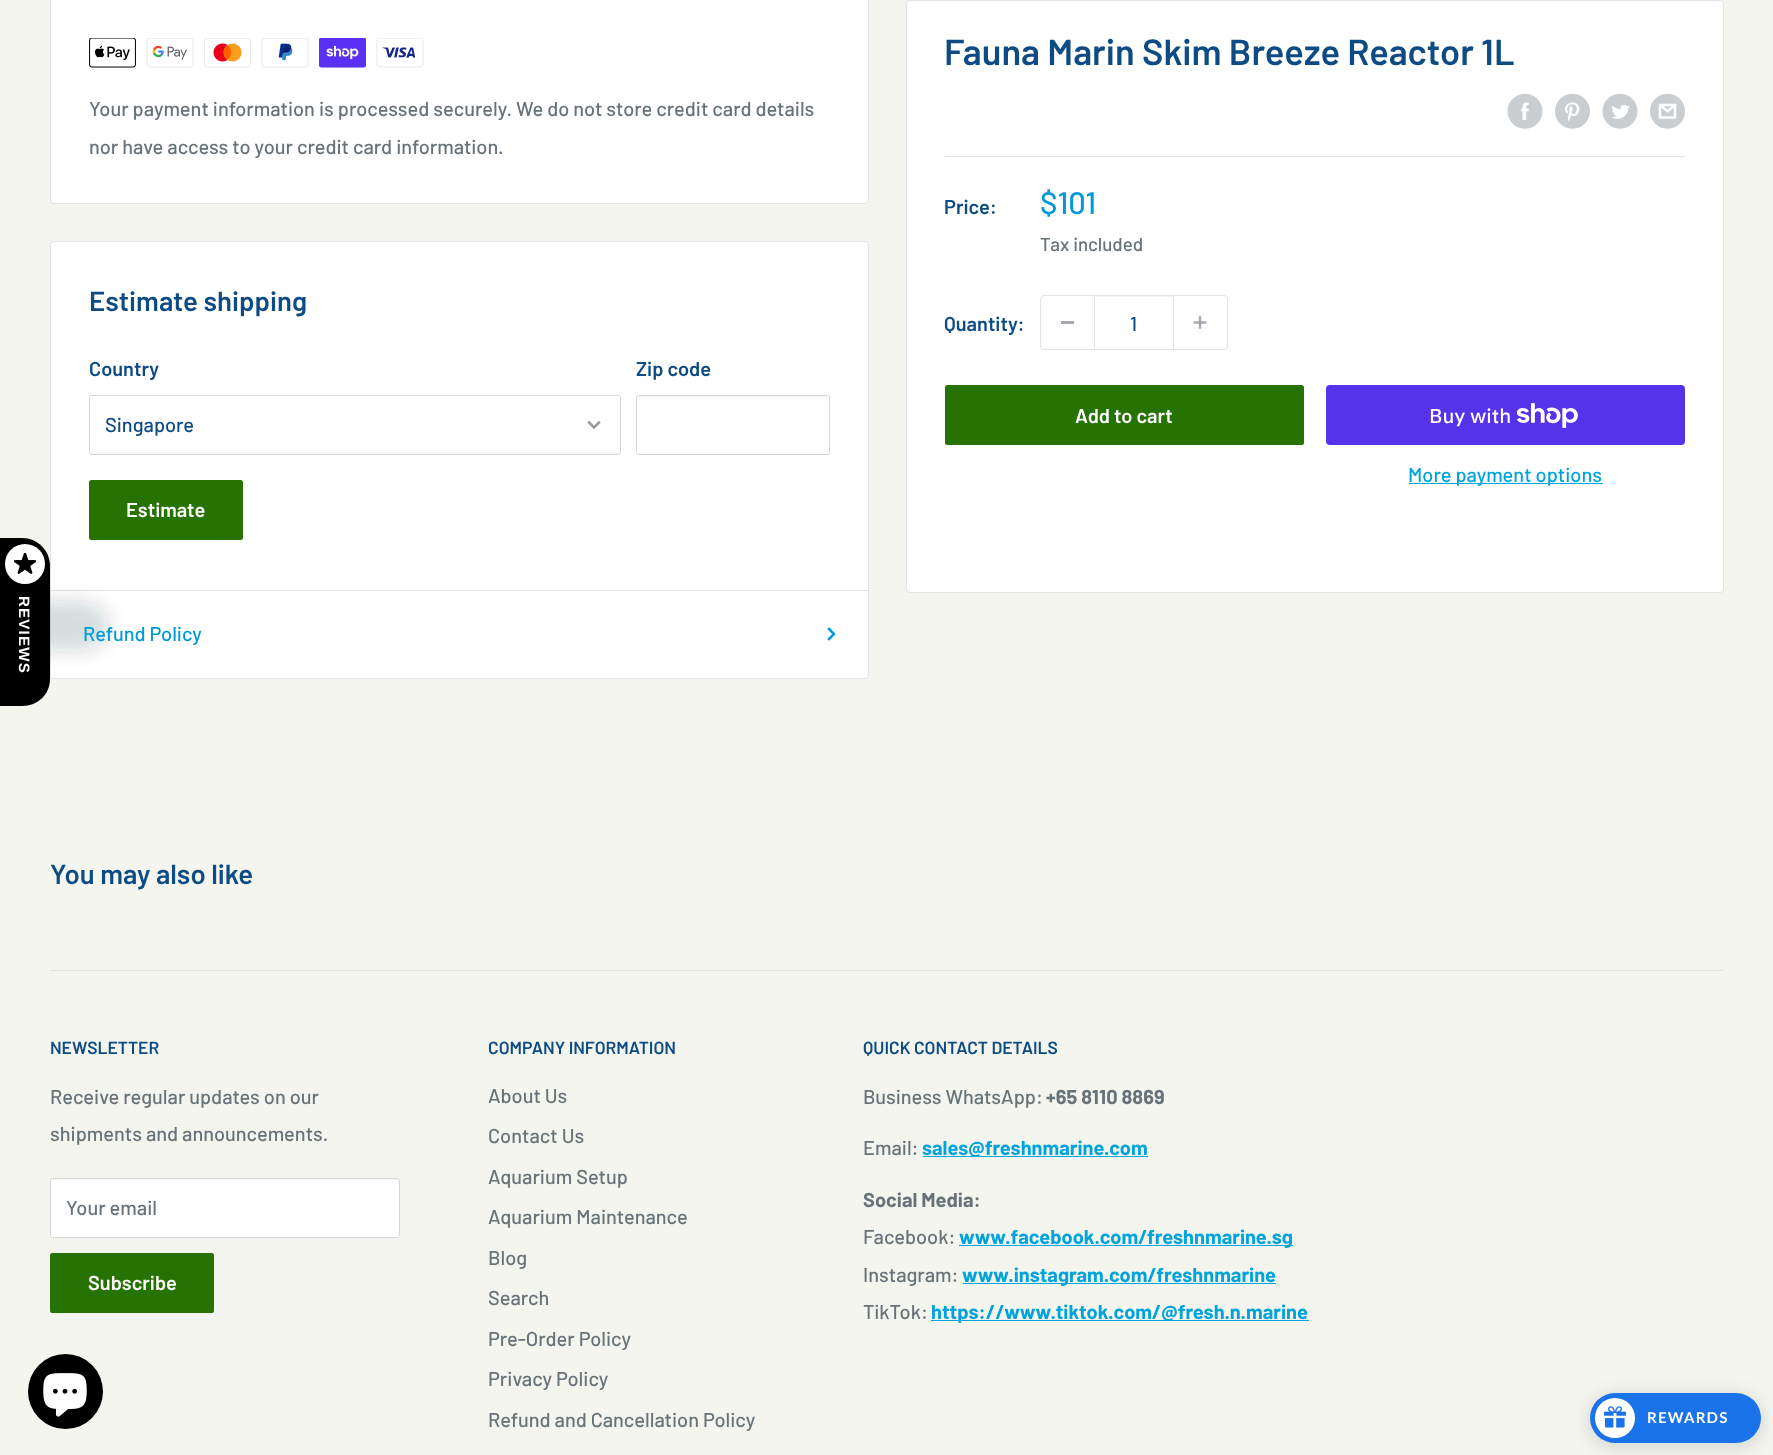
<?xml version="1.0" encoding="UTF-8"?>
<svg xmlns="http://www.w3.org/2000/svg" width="1773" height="1455">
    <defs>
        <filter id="blur1" x="-50%" y="-200%" width="200%" height="500%"><feGaussianBlur stdDeviation="9"/></filter>
    </defs>
    <rect width="100%" height="100%" fill="#F5F5EF"/>
    <rect x="50.5" y="241.5" width="818" height="437" rx="3.5" fill="#FFFFFF" stroke="#E1E3E4"/>
    <rect x="51" y="590" width="817" height="1" fill="#E1E3E4"/>
    <rect x="-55" y="601" width="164" height="50" rx="28" fill="#112233" fill-opacity="0.16" filter="url(#blur1)"/>
    <path d="M 50 566 V 679 C 50 694 38 706 22 706 H 0 V 538 H 22 C 38 538 50 551 50 566 Z" fill="#000000"/>
    <circle cx="25" cy="564" r="20" fill="#FFFFFF"/>
    <image x="14" y="553" width="22" height="21" href="img_01.png"/>
    <text x="19" y="596" transform="rotate(90 19 596)" font-family="Liberation Sans" font-size="15" font-weight="700" letter-spacing="1.25" fill="#FFFFFF">REVIEWS</text>
    <rect x="50.5" y="-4.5" width="818" height="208" rx="3.5" fill="#FFFFFF" stroke="#E1E3E4"/>
    <image x="89" y="38" width="47" height="30" href="img_02.png"/>
    <image x="146" y="38" width="48" height="30" href="img_03.png"/>
    <image x="204" y="38" width="47" height="30" href="img_04.png"/>
    <image x="261" y="38" width="48" height="30" href="img_05.png"/>
    <image x="319" y="38" width="47" height="30" href="img_06.png"/>
    <image x="376" y="38" width="48" height="30" href="img_07.png"/>
    <text font-family="Barlow" font-size="20" font-weight="500" fill="#677279">
        <tspan x="89" y="116">Your payment information is processed securely. We do not store credit card details</tspan>
        <tspan x="89" y="154">nor have access to your credit card information.</tspan>
    </text>
    <rect x="906.5" y="0.5" width="817" height="592" rx="3.5" fill="#FFFFFF" stroke="#E1E3E4"/>
    <text x="944" y="65" font-family="Barlow" font-size="36.25" font-weight="600" fill="#0C4B83">Fauna Marin Skim Breeze Reactor 1L</text>
    <image x="1507" y="93" width="36" height="36" href="img_08.png"/>
    <image x="1555" y="93" width="35" height="36" href="img_09.png"/>
    <image x="1602" y="93" width="36" height="36" href="img_10.png"/>
    <image x="1650" y="93" width="35" height="36" href="img_11.png"/>
    <rect x="945" y="156" width="740" height="1" fill="#E1E3E4"/>
    <text x="944" y="214" font-family="Barlow" font-size="20" font-weight="600" fill="#0C4B83">Price:</text>
    <text x="1040" y="214" font-family="Barlow" font-size="31" font-weight="500" fill="#009ADB">$101</text>
    <text x="1040" y="251" font-family="Barlow" font-size="18.75" font-weight="500" fill="#677279">Tax included</text>
    <text x="944" y="331" font-family="Barlow" font-size="20" font-weight="600" fill="#0C4B83">Quantity:</text>
    <rect x="1040.5" y="295.5" width="187" height="54" rx="3.5" fill="none" stroke="#E1E3E4"/>
    <rect x="1061" y="321" width="13" height="3" fill="#A4AAAF"/>
    <rect x="1095" y="296" width="78" height="1" fill="#F3F4F4"/>
    <rect x="1173" y="296" width="1" height="53" fill="#E1E3E4"/>
    <rect x="1094" y="296" width="1" height="53" fill="#E1E3E4"/>
    <text x="1130" y="331" font-family="Barlow" font-size="20" font-weight="500" fill="#0C4B83">1</text>
    <image x="1193" y="316" width="14" height="13" href="img_12.png"/>
    <rect x="945" y="385" width="359" height="60" rx="2.5" fill="#267303"/>
    <text x="1075" y="423" font-family="Barlow" font-size="20" font-weight="600" fill="#FFFFFF">Add to cart</text>
    <rect x="1326" y="385" width="359" height="60" rx="4" fill="#5433EB"/>
    <text x="1429" y="423" font-family="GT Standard" font-size="20" font-weight="500" fill="#FFFFFF">Buy with</text>
    <image x="1516" y="403" width="62" height="25" href="img_13.png"/>
    <rect x="1409" y="483" width="194" height="1" fill="#00A4DB"/>
    <text x="1408" y="482" font-family="Barlow" font-size="20" font-weight="500" fill="#00A4DB">More payment options</text>
    <text x="89" y="311" font-family="Barlow" font-size="27.5" font-weight="600" fill="#0C4B83">Estimate shipping</text>
    <text x="89" y="376" font-family="Barlow" font-size="20" font-weight="600" fill="#0C4B83">Country</text>
    <path d="M 90 451 V 454 H 91 H 619 C 620 454 620 452 620 451 L 619 452 H 91 Z" fill="#F6F7F7"/>
    <rect x="89.5" y="395.5" width="531" height="59" rx="2" fill="none" stroke="#D4D6D8"/>
    <text x="105" y="432" font-family="Barlow" font-size="20" font-weight="500" fill="#0C4B83">Singapore</text>
    <path d="M 599 422.5 L 594 427.5 L 589 422.5" fill="none" stroke="#959CA1" stroke-width="2.5" stroke-linecap="square"/>
    <text x="636" y="376" font-family="Barlow" font-size="20" font-weight="600" fill="#0C4B83">Zip code</text>
    <path d="M 639 398 H 828 L 829 399 C 829 398 829 396 828 396 H 638 V 399 C 638 398 638 398 639 398 Z" fill="#F8F8F8"/>
    <rect x="636.5" y="395.5" width="193" height="59" rx="2" fill="none" stroke="#D4D6D8"/>
    <rect x="89" y="480" width="154" height="60" rx="2.5" fill="#267303"/>
    <text x="126" y="517" font-family="Barlow" font-size="20" font-weight="600" fill="#FFFFFF">Estimate</text>
    <text x="83" y="641" font-family="Barlow" font-size="20" font-weight="500" fill="#009ADB">Refund Policy</text>
    <path d="M 829 629 L 834 634 L 829 639" fill="none" stroke="#009ADB" stroke-width="2.5" stroke-linecap="square"/>
    <text x="50" y="884" font-family="Barlow" font-size="27.5" font-weight="600" fill="#0C4B83">You may also like</text>
    <rect x="50" y="970" width="1674" height="1" fill="#E1E3E4"/>
    <text x="50" y="1054" font-family="Barlow" font-size="17.5" font-weight="600" fill="#0C4B83">NEWSLETTER</text>
    <text font-family="Barlow" font-size="20" font-weight="500" fill="#677279">
        <tspan x="50" y="1104">Receive regular updates on our</tspan>
        <tspan x="50" y="1141">shipments and announcements.</tspan>
    </text>
    <rect x="50" y="1178" width="350" height="60" rx="2.5" fill="#FFFFFF"/>
    <path d="M 52 1180 H 398 L 399 1181 V 1180 L 398 1179 H 51 V 1181 Z" fill="#F8F8F8"/>
    <rect x="50.5" y="1178.5" width="349" height="59" rx="2" fill="none" stroke="#D4D6D8"/>
    <text x="66" y="1215" font-family="Barlow" font-size="20" font-weight="500" fill="#677279">Your email</text>
    <rect x="50" y="1253" width="164" height="60" rx="2.5" fill="#267303"/>
    <text x="88" y="1290" font-family="Barlow" font-size="20" font-weight="600" fill="#FFFFFF">Subscribe</text>
    <text x="488" y="1054" font-family="Barlow" font-size="17.5" font-weight="600" fill="#0C4B83">COMPANY INFORMATION</text>
    <text x="488" y="1103" font-family="Barlow" font-size="20" font-weight="500" fill="#677279">About Us</text>
    <text x="488" y="1143" font-family="Barlow" font-size="20" font-weight="500" fill="#677279">Contact Us</text>
    <text x="488" y="1184" font-family="Barlow" font-size="20" font-weight="500" fill="#677279">Aquarium Setup</text>
    <text x="488" y="1224" font-family="Barlow" font-size="20" font-weight="500" fill="#677279">Aquarium Maintenance</text>
    <text x="488" y="1265" font-family="Barlow" font-size="20" font-weight="500" fill="#677279">Blog</text>
    <text x="488" y="1305" font-family="Barlow" font-size="20" font-weight="500" fill="#677279">Search</text>
    <text x="488" y="1346" font-family="Barlow" font-size="20" font-weight="500" fill="#677279">Pre-Order Policy</text>
    <text x="488" y="1386" font-family="Barlow" font-size="20" font-weight="500" fill="#677279">Privacy Policy</text>
    <text x="488" y="1427" font-family="Barlow" font-size="20" font-weight="500" fill="#677279">Refund and Cancellation Policy</text>
    <text x="863" y="1054" font-family="Barlow" font-size="17.5" font-weight="600" fill="#0C4B83">QUICK CONTACT DETAILS</text>
    <text x="863" y="1104" font-family="Barlow" font-size="20" font-weight="500" fill="#677279">Business WhatsApp:</text>
    <text x="1046" y="1104" font-family="Barlow" font-size="20" font-weight="700" fill="#677279">+65 8110 8869</text>
    <text x="863" y="1155" font-family="Barlow" font-size="20" font-weight="500" fill="#677279">Email:</text>
    <rect x="923" y="1156" width="225" height="1" fill="#00A4DB"/>
    <text x="922" y="1155" font-family="Barlow" font-size="20" font-weight="700" fill="#00A4DB">sales@freshnmarine.com</text>
    <text x="863" y="1207" font-family="Barlow" font-size="20" font-weight="700" fill="#677279">Social Media:</text>
    <text x="863" y="1244" font-family="Barlow" font-size="20" font-weight="500" fill="#677279">Facebook:</text>
    <rect x="959" y="1245" width="334" height="1" fill="#00A4DB"/>
    <text x="959" y="1244" font-family="Barlow" font-size="20" font-weight="700" fill="#00A4DB">www.facebook.com/freshnmarine.sg</text>
    <text x="863" y="1282" font-family="Barlow" font-size="20" font-weight="500" fill="#677279">Instagram:</text>
    <rect x="963" y="1283" width="313" height="1" fill="#00A4DB"/>
    <text x="962" y="1282" font-family="Barlow" font-size="20" font-weight="700" fill="#00A4DB">www.instagram.com/freshnmarine</text>
    <text x="863" y="1319" font-family="Barlow" font-size="20" font-weight="500" fill="#677279">TikTok:</text>
    <rect x="931" y="1320" width="378" height="1" fill="#00A4DB"/>
    <text x="931" y="1319" font-family="Barlow" font-size="20" font-weight="700" fill="#00A4DB">https://www.tiktok.com/@fresh.n.marine</text>
    <circle cx="65.5" cy="1391.5" r="37.5" fill="#000000"/>
    <image x="43" y="1373" width="44" height="44" href="img_14.png"/>
    <rect x="1590" y="1396" width="171" height="50" rx="25" fill="#112233" fill-opacity="0.16" filter="url(#blur1)"/>
    <rect x="1590" y="1393" width="171" height="50" rx="25" fill="#1A73E8"/>
    <circle cx="1615" cy="1418" r="20" fill="#FFFFFF"/>
    <image x="1604" y="1406" width="22" height="22" href="img_15.png"/>
    <text x="1647" y="1423" font-family="Lato" font-size="15" font-weight="700" letter-spacing="1.25" fill="#FFFFFF">REWARDS</text>
</svg>
